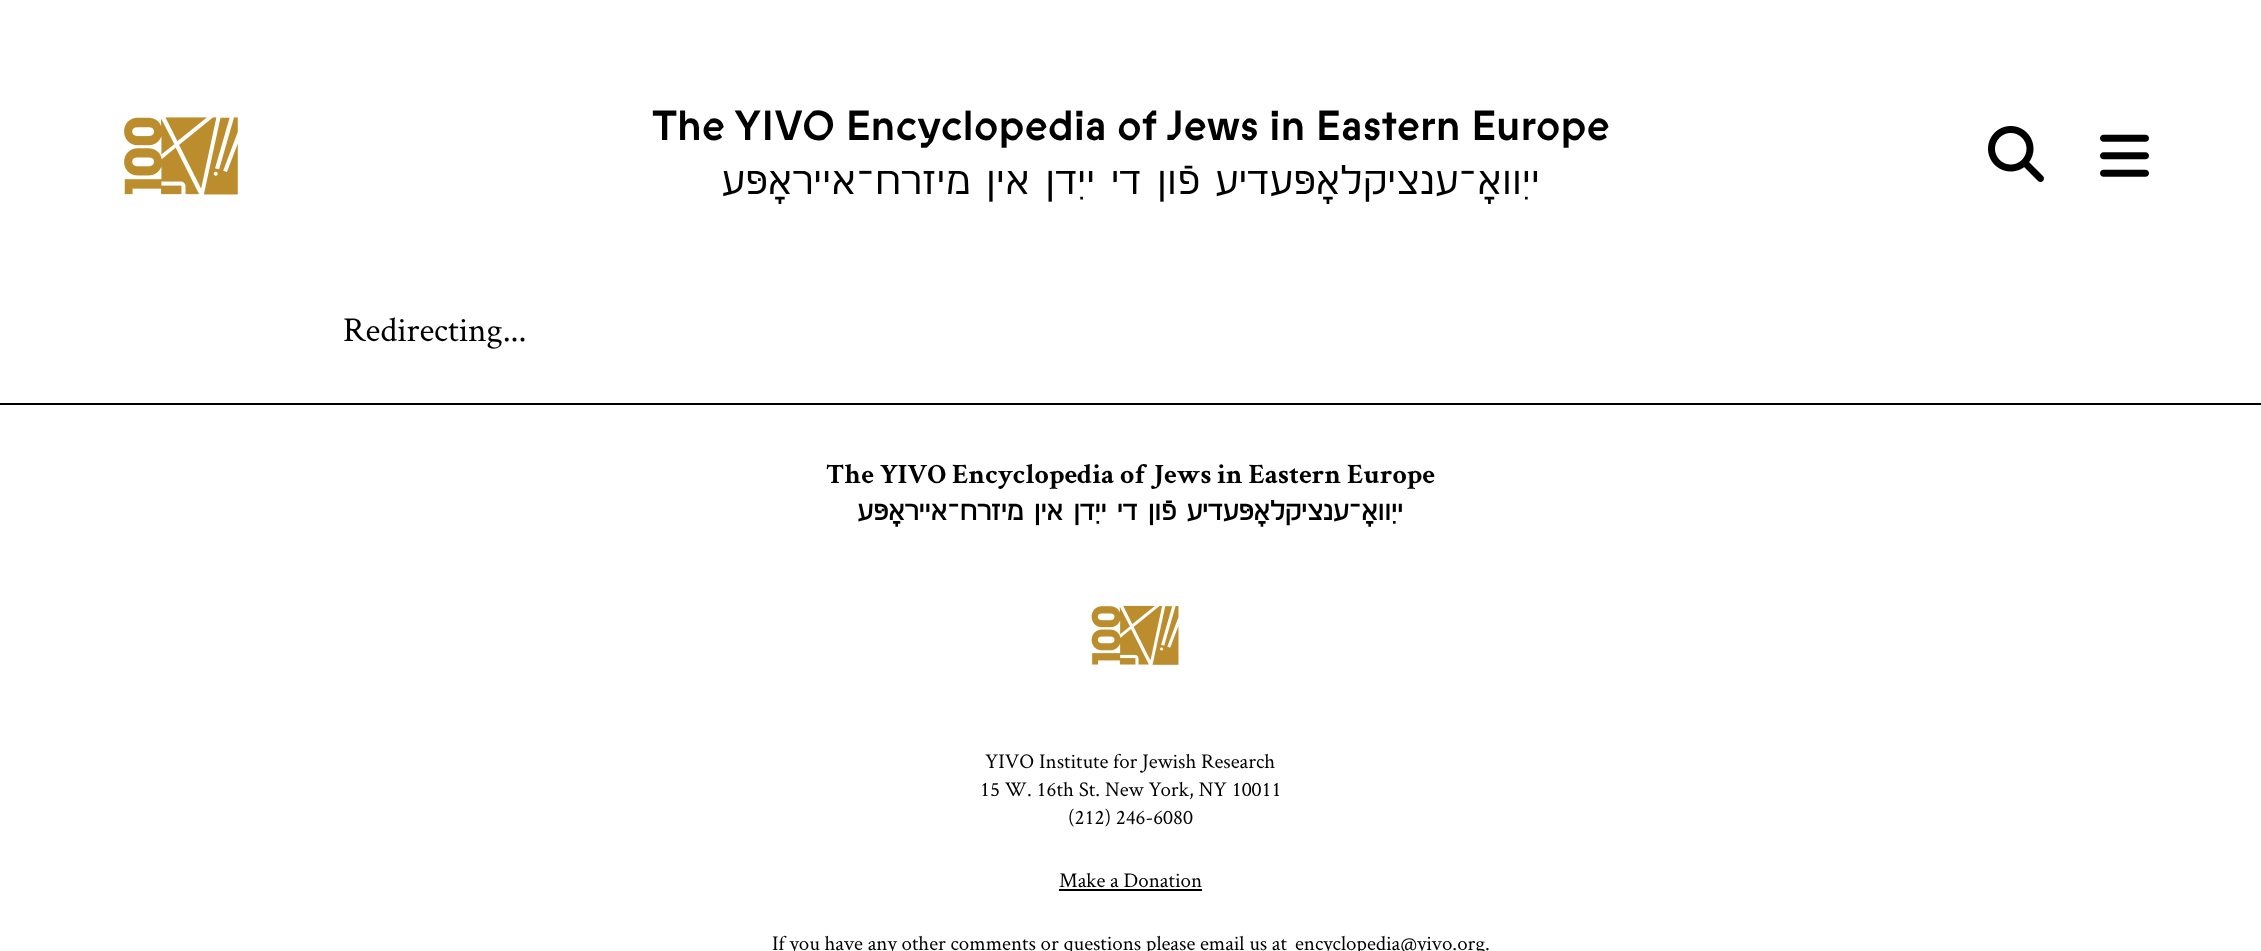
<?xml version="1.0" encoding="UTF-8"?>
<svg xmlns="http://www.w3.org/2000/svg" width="2261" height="951">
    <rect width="100%" height="100%" fill="#FFFFFF"/>
    <image x="124" y="117" width="114" height="78" href="img_01.png"/>
    <text x="652" y="140" font-family="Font" font-size="42" font-weight="500" fill="#000000">The YIVO Encyclopedia of Jews in Eastern Europe</text>
    <text x="1540" y="194" font-family="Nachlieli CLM" font-size="42" font-weight="300" direction="rtl" fill="#000000">ייִוואָ־ענציקלאָפּעדיע פֿון די ייִדן אין מיזרח־אייראָפּע</text>
    <image x="1988" y="126" width="56" height="56" href="img_02.png"/>
    <image x="2100" y="134" width="49" height="43" href="img_03.png"/>
    <text x="343" y="341" font-family="Crimson Text" font-size="35" fill="#000000">Redirecting...</text>
    <rect x="0" y="403" width="2261" height="2" fill="#000000"/>
    <text x="826" y="483" font-family="Crimson Text" font-size="28" font-weight="700" fill="#000000">The YIVO Encyclopedia of Jews in Eastern Europe</text>
    <text x="1403" y="520" font-family="Nachlieli CLM" font-size="28" font-weight="700" direction="rtl" fill="#000000">ייִוואָ־ענציקלאָפּעדיע פֿון די ייִדן אין מיזרח־אייראָפּע</text>
    <image x="1091" y="605" width="88" height="60" href="img_04.png"/>
    <text x="985" y="768" font-family="Crimson Text" font-size="21" fill="#000000">YIVO Institute for Jewish Research</text>
    <text x="980" y="796" word-spacing="0.25" font-family="Crimson Text" font-size="21" fill="#000000">15 W. 16th St. New York, NY 10011</text>
    <text x="1068" y="824" font-family="Crimson Text" font-size="21" fill="#000000">(212) 246-6080</text>
    <text x="1059" y="887" font-family="Crimson Text" font-size="21" fill="#000000">Make a Donation</text>
    <rect x="1059" y="889" width="143" height="2" fill="#000000"/>
    <text x="772" y="950" font-family="Crimson Text" font-size="21" fill="#000000">If you have any other comments or questions please email us at</text>
    <text x="1295" y="950" font-family="Crimson Text" font-size="21" fill="#000000">encyclopedia@yivo.org.</text>
</svg>
